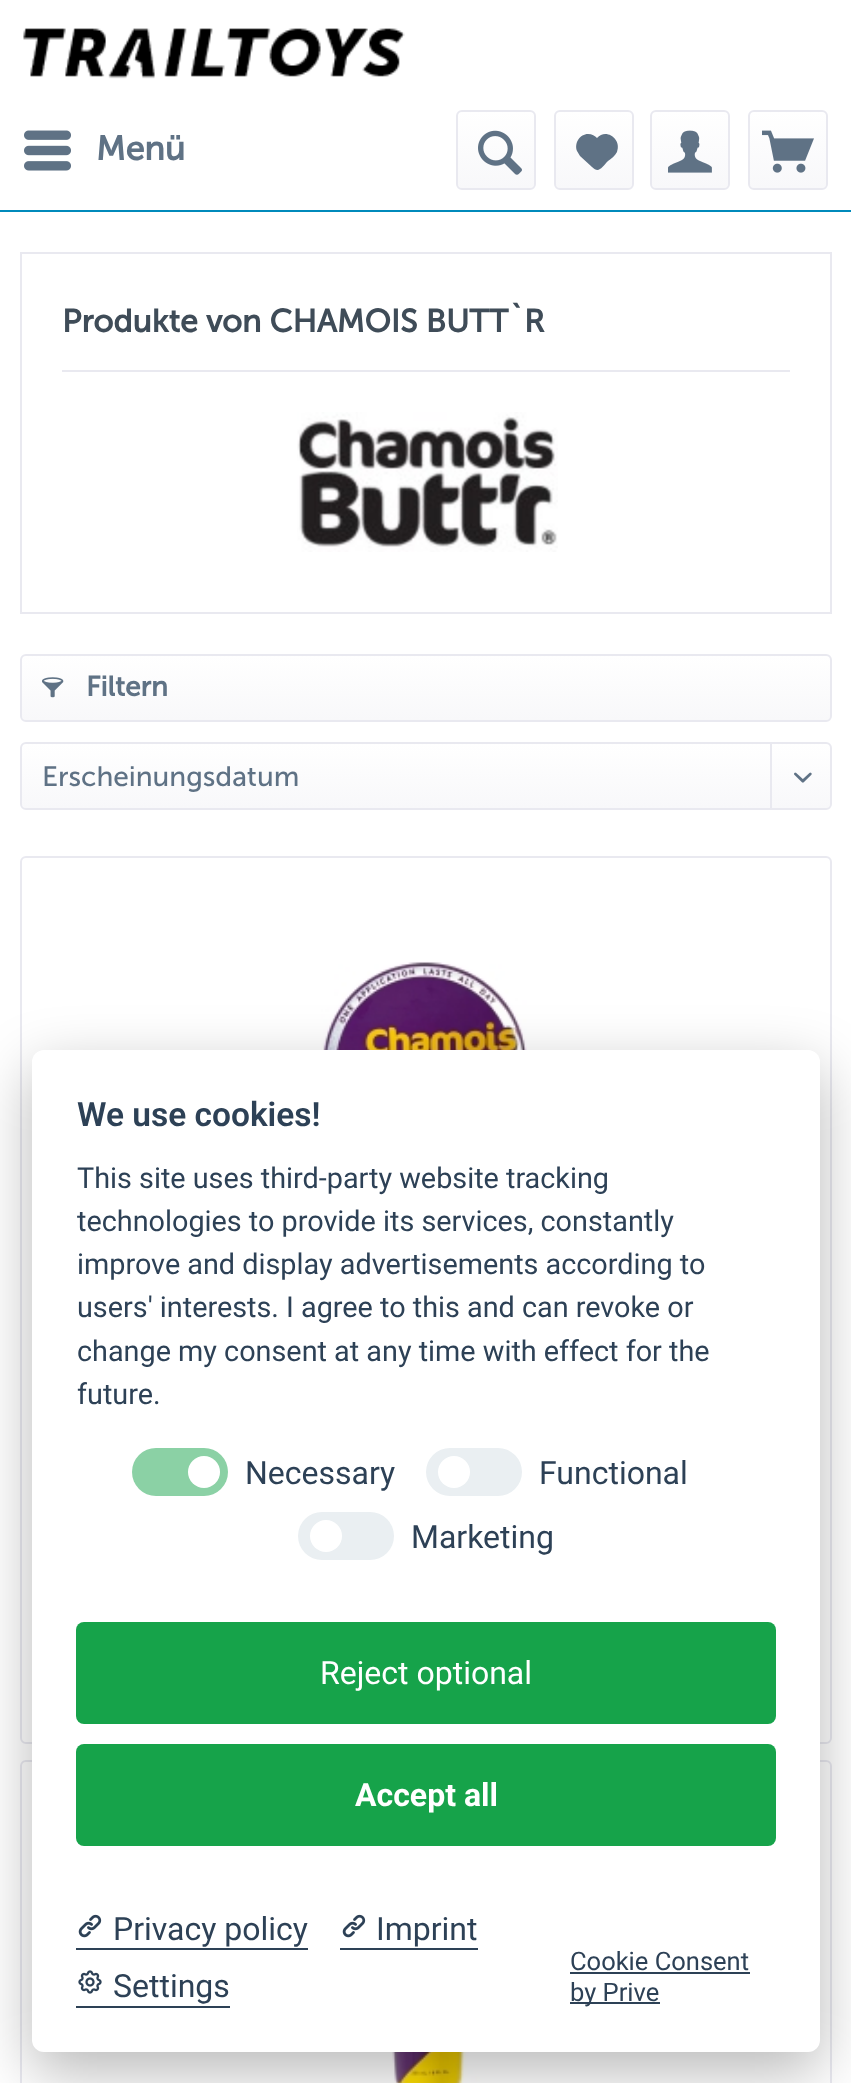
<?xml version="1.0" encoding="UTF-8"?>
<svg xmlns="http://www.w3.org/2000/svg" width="851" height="2083">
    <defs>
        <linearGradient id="g1" gradientUnits="userSpaceOnUse" x1="496" y1="112" x2="496" y2="188"><stop offset="0" stop-color="#FFFFFF"/><stop offset="1" stop-color="#F8F8FA"/></linearGradient>
        <linearGradient id="g2" gradientUnits="userSpaceOnUse" x1="594" y1="112" x2="594" y2="188"><stop offset="0" stop-color="#FFFFFF"/><stop offset="1" stop-color="#F8F8FA"/></linearGradient>
        <linearGradient id="g3" gradientUnits="userSpaceOnUse" x1="690" y1="112" x2="690" y2="188"><stop offset="0" stop-color="#FFFFFF"/><stop offset="1" stop-color="#F8F8FA"/></linearGradient>
        <linearGradient id="g4" gradientUnits="userSpaceOnUse" x1="788" y1="112" x2="788" y2="188"><stop offset="0" stop-color="#FFFFFF"/><stop offset="1" stop-color="#F8F8FA"/></linearGradient>
        <linearGradient id="g5" gradientUnits="userSpaceOnUse" x1="426" y1="656" x2="426" y2="720"><stop offset="0" stop-color="#FFFFFF"/><stop offset="1" stop-color="#F8F8FA"/></linearGradient>
        <linearGradient id="g6" gradientUnits="userSpaceOnUse" x1="426" y1="744" x2="426" y2="808"><stop offset="0" stop-color="#FFFFFF"/><stop offset="1" stop-color="#F8F8FA"/></linearGradient>
        <filter id="blur1" x="-50%" y="-200%" width="200%" height="500%"><feGaussianBlur stdDeviation="30"/></filter>
    </defs>
    <rect width="100%" height="100%" fill="#FFFFFF"/>
    <rect x="0" y="210" width="851" height="2" fill="#008ABB"/>
    <image x="23" y="28" width="382" height="51" href="img_01.png"/>
    <image x="24" y="130" width="47" height="41" href="img_02.png"/>
    <text x="96" y="160" font-family="Museo Sans" font-size="34" font-weight="700" fill="#5F7285">Menü</text>
    <rect x="458" y="112" width="76" height="76" rx="4" fill="url(#g1)"/>
    <rect x="457" y="111" width="78" height="78" rx="5" fill="none" stroke="#E9E9F0" stroke-width="2"/>
    <image x="478" y="130" width="44" height="45" href="img_03.png"/>
    <rect x="556" y="112" width="76" height="76" rx="4" fill="url(#g2)"/>
    <rect x="555" y="111" width="78" height="78" rx="5" fill="none" stroke="#E9E9F0" stroke-width="2"/>
    <path d="M 588 134 C 580 134 574 143 577 151 L 580 156 L 592 167 C 599 174 602 167 608 161 C 611 159 615 156 617 152 C 622 139 606 128 597 138 C 595 136 592 134 588 134 Z" fill="#5F7285"/>
    <rect x="652" y="112" width="76" height="76" rx="4" fill="url(#g3)"/>
    <rect x="651" y="111" width="78" height="78" rx="5" fill="none" stroke="#E9E9F0" stroke-width="2"/>
    <image x="668" y="130" width="44" height="43" href="img_04.png"/>
    <rect x="750" y="112" width="76" height="76" rx="4" fill="url(#g4)"/>
    <rect x="749" y="111" width="78" height="78" rx="5" fill="none" stroke="#E9E9F0" stroke-width="2"/>
    <image x="762" y="130" width="52" height="43" href="img_05.png"/>
    <rect x="21" y="253" width="810" height="360" fill="none" stroke="#E9E9F0" stroke-width="2"/>
    <rect x="62" y="370" width="728" height="2" fill="#E9E9F0"/>
    <text x="62" y="332" font-family="Museo Sans" font-size="32" font-weight="700" fill="#3F4C58">Produkte von CHAMOIS BUTT`R</text>
    <image x="297" y="412" width="261" height="140" href="img_06.png"/>
    <rect x="22" y="656" width="808" height="64" rx="4" fill="url(#g5)"/>
    <rect x="21" y="655" width="810" height="66" rx="5" fill="none" stroke="#E9E9F0" stroke-width="2"/>
    <image x="42" y="677" width="22" height="21" href="img_07.png"/>
    <text x="86" y="696" font-family="Museo Sans" font-size="28" font-weight="700" fill="#5F7285">Filtern</text>
    <rect x="22" y="744" width="808" height="64" rx="4" fill="url(#g6)"/>
    <rect x="21" y="743" width="810" height="66" rx="5" fill="none" stroke="#E9E9F0" stroke-width="2"/>
    <text x="42" y="786" font-family="Museo Sans" font-size="28" fill="#5F7285">Erscheinungsdatum</text>
    <rect x="770" y="744" width="2" height="66" fill="#E9E9F0"/>
    <image x="794" y="772" width="18" height="11" href="img_08.png"/>
    <rect x="21" y="857" width="810" height="886" rx="5" fill="none" stroke="#E9E9F0" stroke-width="2"/>
    <image x="321" y="961" width="206" height="89" href="img_09.png"/>
    <rect x="21" y="1761" width="810" height="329" rx="5" fill="none" stroke="#E9E9F0" stroke-width="2"/>
    <image x="371" y="2052" width="110" height="31" href="img_10.png"/>
    <rect x="32" y="1070" width="788" height="1002" rx="12" fill="#020203" fill-opacity="0.28" filter="url(#blur1)"/>
    <rect x="32" y="1050" width="788" height="1002" rx="12" fill="#FFFFFF"/>
    <text x="77" y="1126" font-family="Roboto" font-size="33.5" font-weight="600" fill="#2D4156">We use cookies!</text>
    <text font-family="Roboto" font-size="28.8" fill="#2D4156">
        <tspan x="77" y="1188">This site uses third-party website tracking</tspan>
        <tspan x="77" y="1231">technologies to provide its services, constantly</tspan>
        <tspan x="77" y="1274">improve and display advertisements according to</tspan>
        <tspan x="77" y="1317">users' interests. I agree to this and can revoke or</tspan>
        <tspan x="77" y="1361">change my consent at any time with effect for the</tspan>
        <tspan x="77" y="1404">future.</tspan>
    </text>
    <rect x="132" y="1448" width="96" height="48" rx="24" fill="#8BD1A5"/>
    <circle cx="204" cy="1472" r="16" fill="#FFFFFF"/>
    <text x="245" y="1484" font-family="Roboto" font-size="32" fill="#2D4156">Necessary</text>
    <rect x="426" y="1448" width="96" height="48" rx="24" fill="#EAEFF2"/>
    <circle cx="454" cy="1472" r="16" fill="#FFFFFF"/>
    <text x="539" y="1484" font-family="Roboto" font-size="32" fill="#2D4156">Functional</text>
    <rect x="298" y="1512" width="96" height="48" rx="24" fill="#EAEFF2"/>
    <circle cx="326" cy="1536" r="16" fill="#FFFFFF"/>
    <text x="411" y="1548" font-family="Roboto" font-size="32" fill="#2D4156">Marketing</text>
    <rect x="76" y="1622" width="700" height="102" rx="8" fill="#16A34A"/>
    <text x="320" y="1684" font-family="Roboto" font-size="32" fill="#FFFFFF">Reject optional</text>
    <rect x="76" y="1744" width="700" height="102" rx="8" fill="#16A34A"/>
    <text x="355" y="1806" font-family="Roboto" font-size="32" font-weight="700" fill="#FFFFFF">Accept all</text>
    <rect x="76" y="1948" width="232" height="2" fill="#2D4156"/>
    <image x="78" y="1914" width="24" height="24" href="img_11.png"/>
    <text x="113" y="1940" font-family="Roboto" font-size="32" fill="#2D4156">Privacy policy</text>
    <rect x="340" y="1948" width="138" height="2" fill="#2D4156"/>
    <image x="342" y="1914" width="24" height="24" href="img_11.png"/>
    <text x="376" y="1940" font-family="Roboto" font-size="32" fill="#2D4156">Imprint</text>
    <rect x="76" y="2006" width="154" height="2" fill="#2D4156"/>
    <image x="78" y="1970" width="24" height="24" href="img_12.png"/>
    <text x="113" y="1997" font-family="Roboto" font-size="32" fill="#2D4156">Settings</text>
    <text x="570" y="1970" font-family="Roboto" font-size="25.5" fill="#2D4156">Cookie Consent</text>
    <rect x="570" y="1972" width="180" height="2" fill="#2D4156"/>
    <rect x="570" y="2002" width="90" height="2" fill="#2D4156"/>
    <text x="570" y="2001" font-family="Roboto" font-size="25.5" fill="#2D4156">by Prive</text>
</svg>
